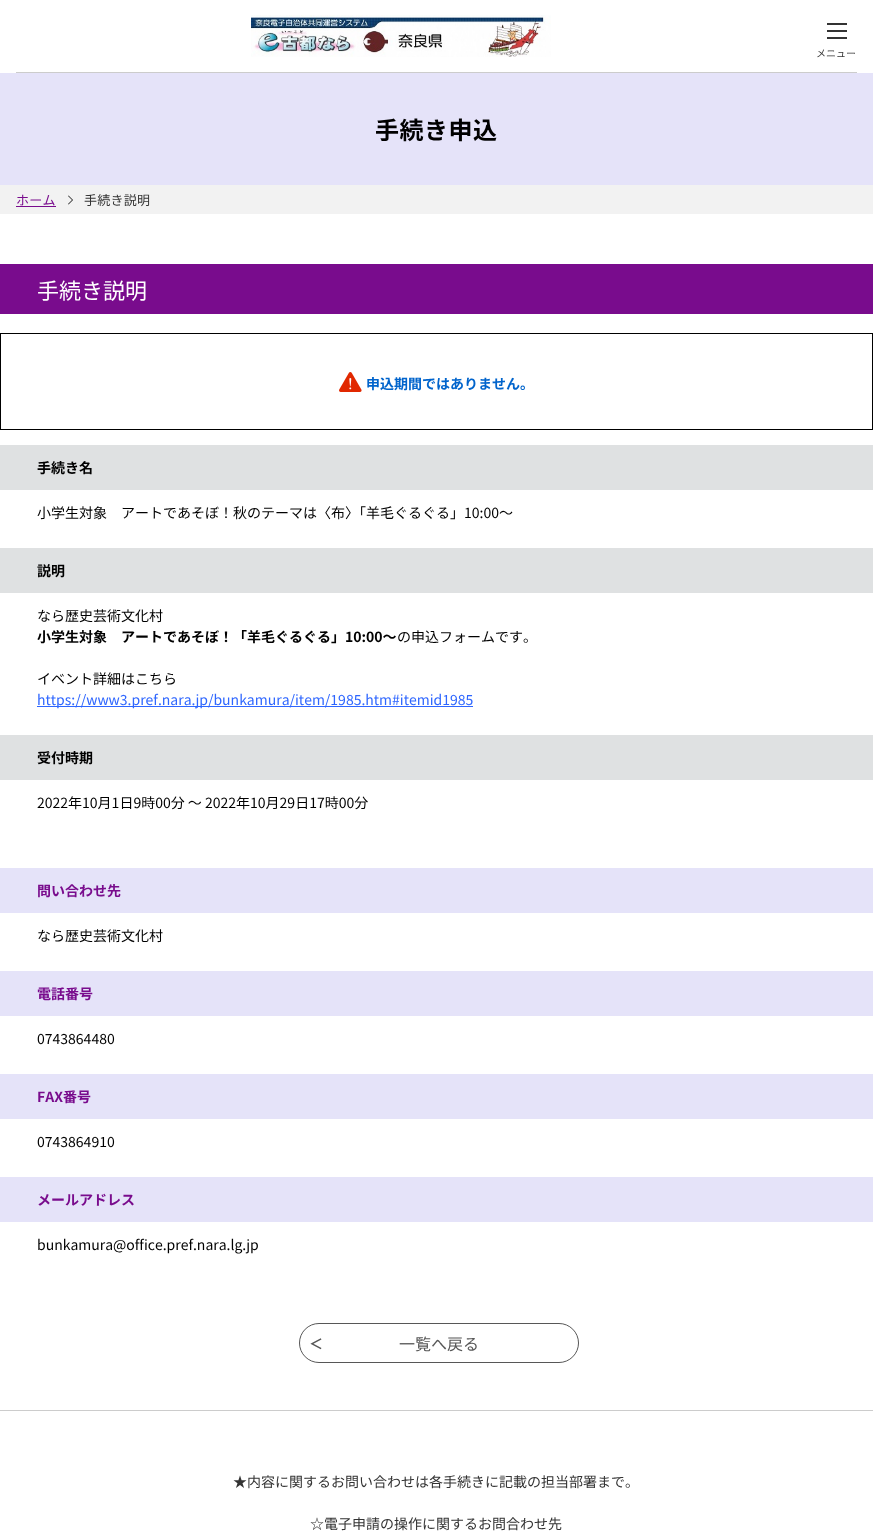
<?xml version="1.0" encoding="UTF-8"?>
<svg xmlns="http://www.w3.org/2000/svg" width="873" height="1537">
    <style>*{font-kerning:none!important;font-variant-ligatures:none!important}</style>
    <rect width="100%" height="100%" fill="#FFFFFF"/>
    <image x="251" y="15" width="300" height="42" href="img_01.png"/>
    <rect x="827" y="30" width="20" height="2" fill="#333333"/>
    <rect x="827" y="23" width="20" height="2" fill="#333333"/>
    <rect x="827" y="37" width="20" height="2" fill="#333333"/>
    <text x="816" y="57" font-family="Noto Sans JP" font-size="10" fill="#333333">メニュー</text>
    <rect x="16" y="72" width="841" height="1" fill="#CCCCCC"/>
    <rect x="0" y="73" width="873" height="112" fill="#E5E3F9"/>
    <text x="375" y="139" font-family="Noto Sans JP" font-size="24" font-weight="700" letter-spacing="0.5" fill="#000000">手続き申込</text>
    <rect x="0" y="185" width="873" height="29" fill="#F2F2F2"/>
    <text x="16" y="205" font-family="Noto Sans JP" font-size="13" letter-spacing="0.25" fill="#790C8D">ホーム</text>
    <rect x="16" y="206" width="40" height="1" fill="#790C8D"/>
    <image x="68" y="195" width="5" height="10" href="img_02.png"/>
    <text x="84" y="205" font-family="Noto Sans JP" font-size="13" letter-spacing="0.25" fill="#333333">手続き説明</text>
    <rect x="0" y="264" width="873" height="50" fill="#790C8D"/>
    <text x="37" y="299" font-family="Noto Sans JP" font-size="22" fill="#FFFFFF">手続き説明</text>
    <rect x="0.5" y="333.5" width="872" height="96" fill="none" stroke="#000000"/>
    <image x="339" y="372" width="23" height="20" href="img_03.png"/>
    <text x="366" y="389" font-family="Noto Sans JP" font-size="14" font-weight="700" fill="#0164CC">申込期間ではありません。</text>
    <rect x="0" y="445" width="873" height="45" fill="#DFE1E2"/>
    <text x="37" y="473" font-family="Noto Sans JP" font-size="14" font-weight="700" fill="#000000">手続き名</text>
    <text x="37" y="518" font-family="Noto Sans JP" font-size="14" fill="#000000">小学生対象　アートであそぼ！秋のテーマは〈布〉「羊毛ぐるぐる」10:00～</text>
    <rect x="0" y="548" width="873" height="45" fill="#DFE1E2"/>
    <text x="37" y="576" font-family="Noto Sans JP" font-size="14" font-weight="700" fill="#000000">説明</text>
    <text x="37" y="621" font-family="Noto Sans JP" font-size="14" fill="#000000">なら歴史芸術文化村</text>
    <text x="37" y="642" font-family="Noto Sans JP" font-size="14" font-weight="700" fill="#000000">小学生対象　アートであそぼ！「羊毛ぐるぐる」10:00～</text>
    <text x="397" y="642" font-family="Noto Sans JP" font-size="14" fill="#000000">の申込フォームです。</text>
    <text x="37" y="684" font-family="Noto Sans JP" font-size="14" fill="#000000">イベント詳細はこちら</text>
    <rect x="37" y="706" width="436" height="1" fill="#2E66FF"/>
    <text x="37" y="705" font-family="Noto Sans JP" font-size="14" fill="#2E66FF">https://www3.pref.nara.jp/bunkamura/item/1985.htm#itemid1985</text>
    <rect x="0" y="735" width="873" height="45" fill="#DFE1E2"/>
    <text x="37" y="763" font-family="Noto Sans JP" font-size="14" font-weight="700" fill="#000000">受付時期</text>
    <text x="37" y="808" font-family="Noto Sans JP" font-size="14" fill="#000000">2022年10月1日9時00分 ～ 2022年10月29日17時00分</text>
    <rect x="0" y="868" width="873" height="45" fill="#E5E3F9"/>
    <text x="37" y="896" font-family="Noto Sans JP" font-size="14" font-weight="700" fill="#790C8D">問い合わせ先</text>
    <text x="37" y="941" font-family="Noto Sans JP" font-size="14" fill="#000000">なら歴史芸術文化村</text>
    <rect x="0" y="971" width="873" height="45" fill="#E5E3F9"/>
    <text x="37" y="999" font-family="Noto Sans JP" font-size="14" font-weight="700" fill="#790C8D">電話番号</text>
    <text x="37" y="1044" font-family="Noto Sans JP" font-size="14" fill="#000000">0743864480</text>
    <rect x="0" y="1074" width="873" height="45" fill="#E5E3F9"/>
    <text x="37" y="1102" font-family="Noto Sans JP" font-size="14" font-weight="700" fill="#790C8D">FAX番号</text>
    <text x="37" y="1147" font-family="Noto Sans JP" font-size="14" fill="#000000">0743864910</text>
    <rect x="0" y="1177" width="873" height="45" fill="#E5E3F9"/>
    <text x="37" y="1205" font-family="Noto Sans JP" font-size="14" font-weight="700" fill="#790C8D">メールアドレス</text>
    <text x="37" y="1250" font-family="Noto Sans JP" font-size="14" fill="#000000">bunkamura@office.pref.nara.lg.jp</text>
    <rect x="299.5" y="1323.5" width="279" height="39" rx="19.5" fill="none" stroke="#575757"/>
    <text x="309" y="1349" font-family="Noto Sans JP" font-size="14" font-weight="700" fill="#575757">＜</text>
    <text x="399" y="1350" font-family="Noto Sans JP" font-size="16" fill="#575757">一覧へ戻る</text>
    <rect x="0" y="1410" width="873" height="1" fill="#CCCCCC"/>
    <text x="233" y="1487" font-family="Noto Sans JP" font-size="14" fill="#333333">★内容に関するお問い合わせは各手続きに記載の担当部署まで。</text>
    <text x="310" y="1529" font-family="Noto Sans JP" font-size="14" fill="#333333">☆電子申請の操作に関するお問合わせ先</text>
</svg>
